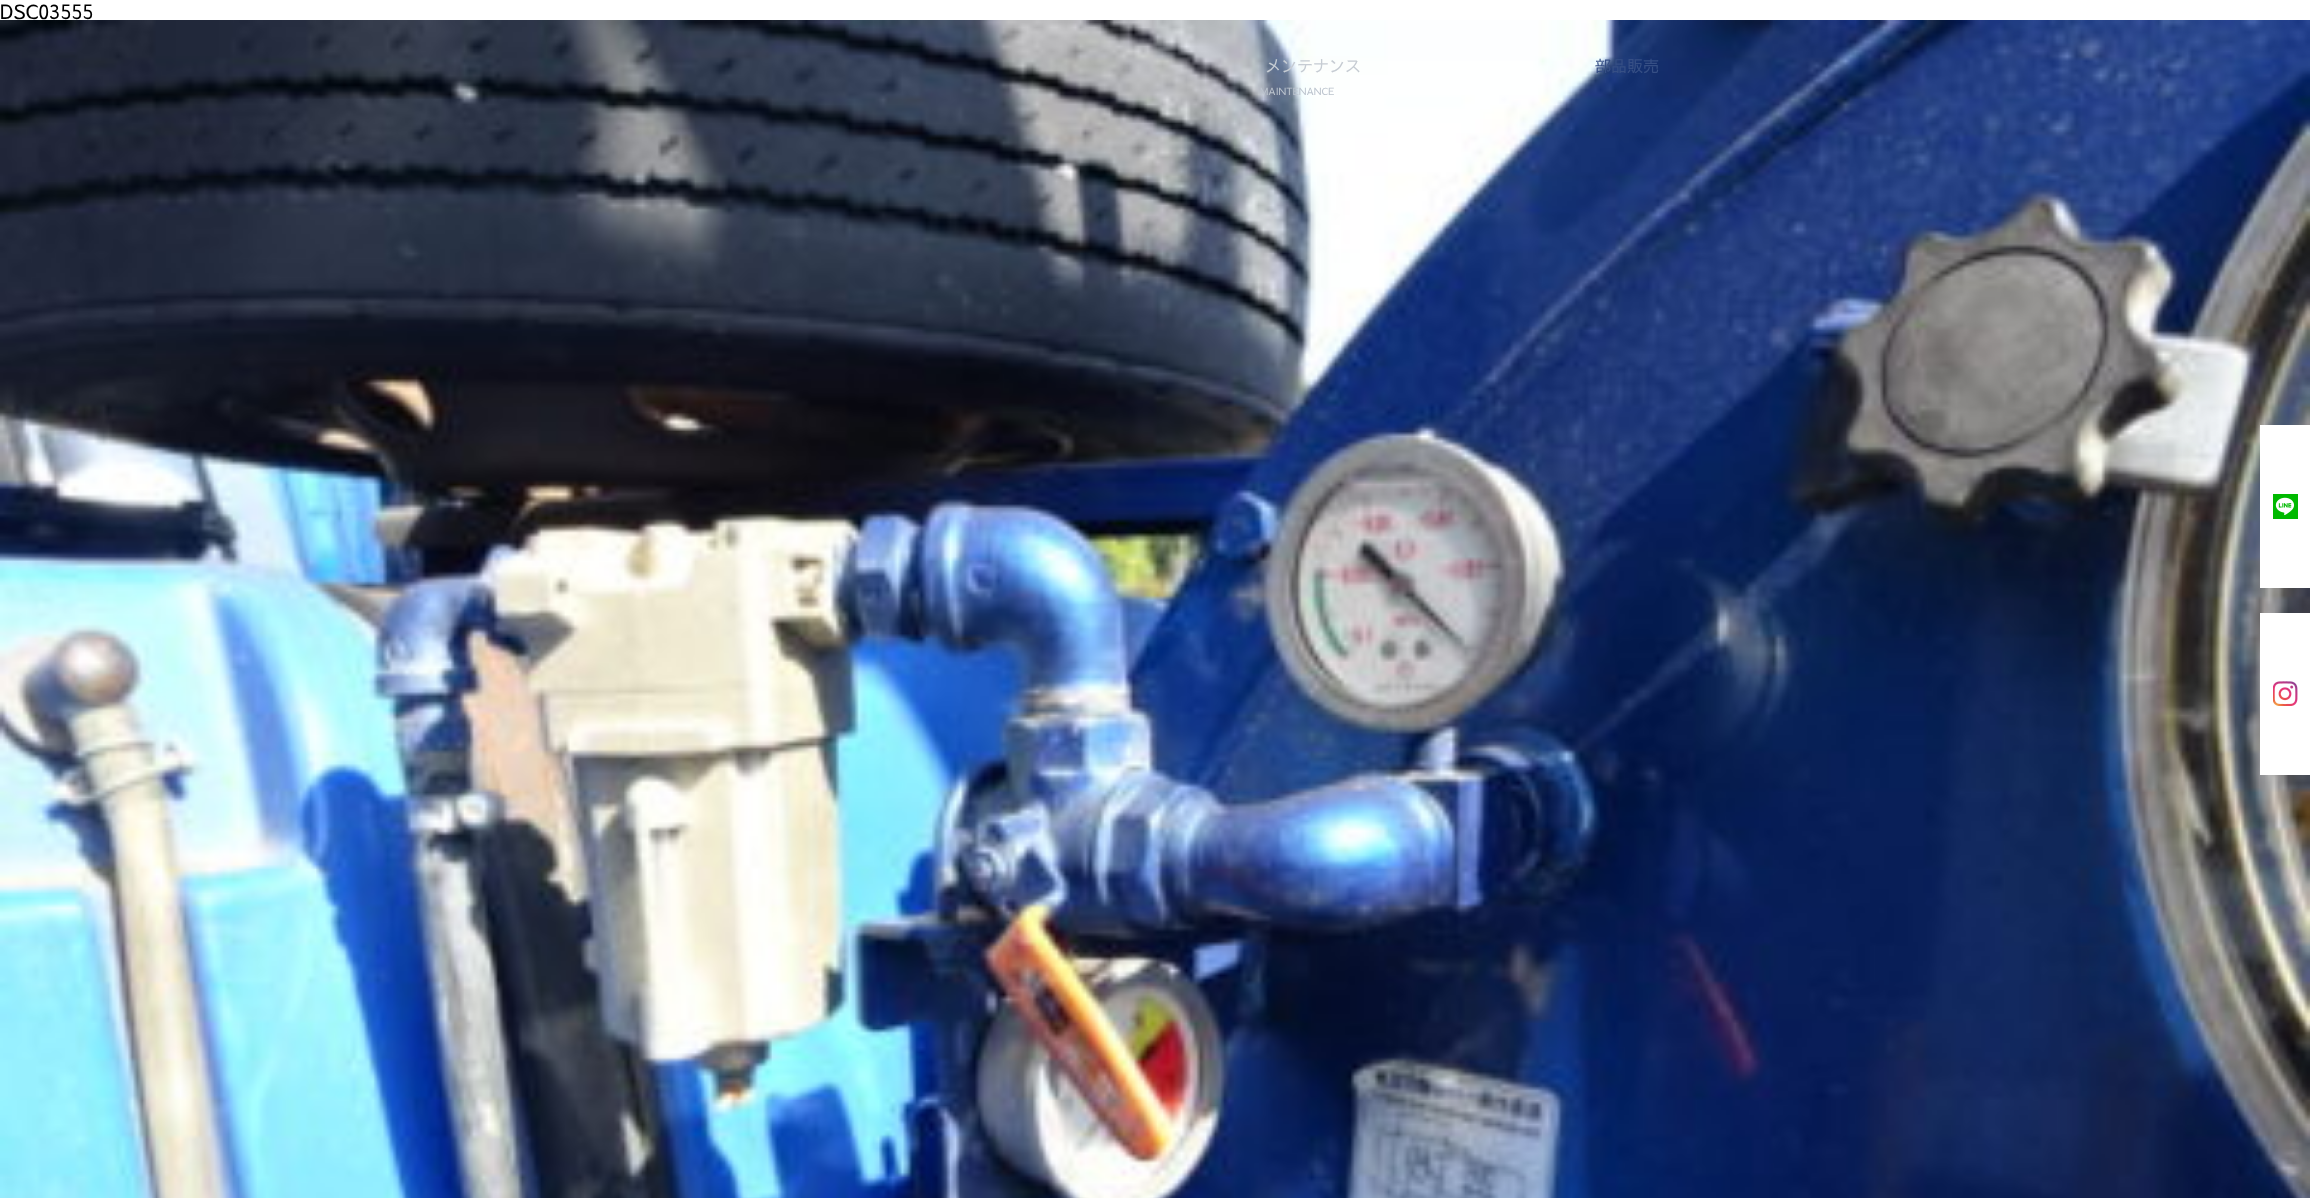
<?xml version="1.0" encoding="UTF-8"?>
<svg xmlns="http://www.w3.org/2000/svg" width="2310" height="1198">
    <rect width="100%" height="100%" fill="#FFFFFF"/>
    <text x="0" y="19" font-family="Sawarabi Gothic" font-size="20" fill="#000000">DSC03555</text>
    <image x="0" y="20" width="2310" height="1178" href="img_01.png"/>
    <text x="1265" y="72" font-family="Sawarabi Gothic" font-size="16" fill="#C6CCD3">メンテナンス</text>
    <text x="1260" y="95" font-family="Sawarabi Gothic" font-size="10" fill="#BCC4CE">MAINTENANCE</text>
    <text x="1595" y="72" font-family="Sawarabi Gothic" font-size="16" fill="#364F85">部品販売</text>
    <rect x="2260" y="425" width="50" height="163" fill="#FFFFFF"/>
    <image x="2273" y="494" width="25" height="25" href="img_02.png"/>
    <rect x="2260" y="613" width="50" height="162" fill="#FFFFFF"/>
    <image x="2273" y="681" width="25" height="25" href="img_03.png"/>
</svg>
